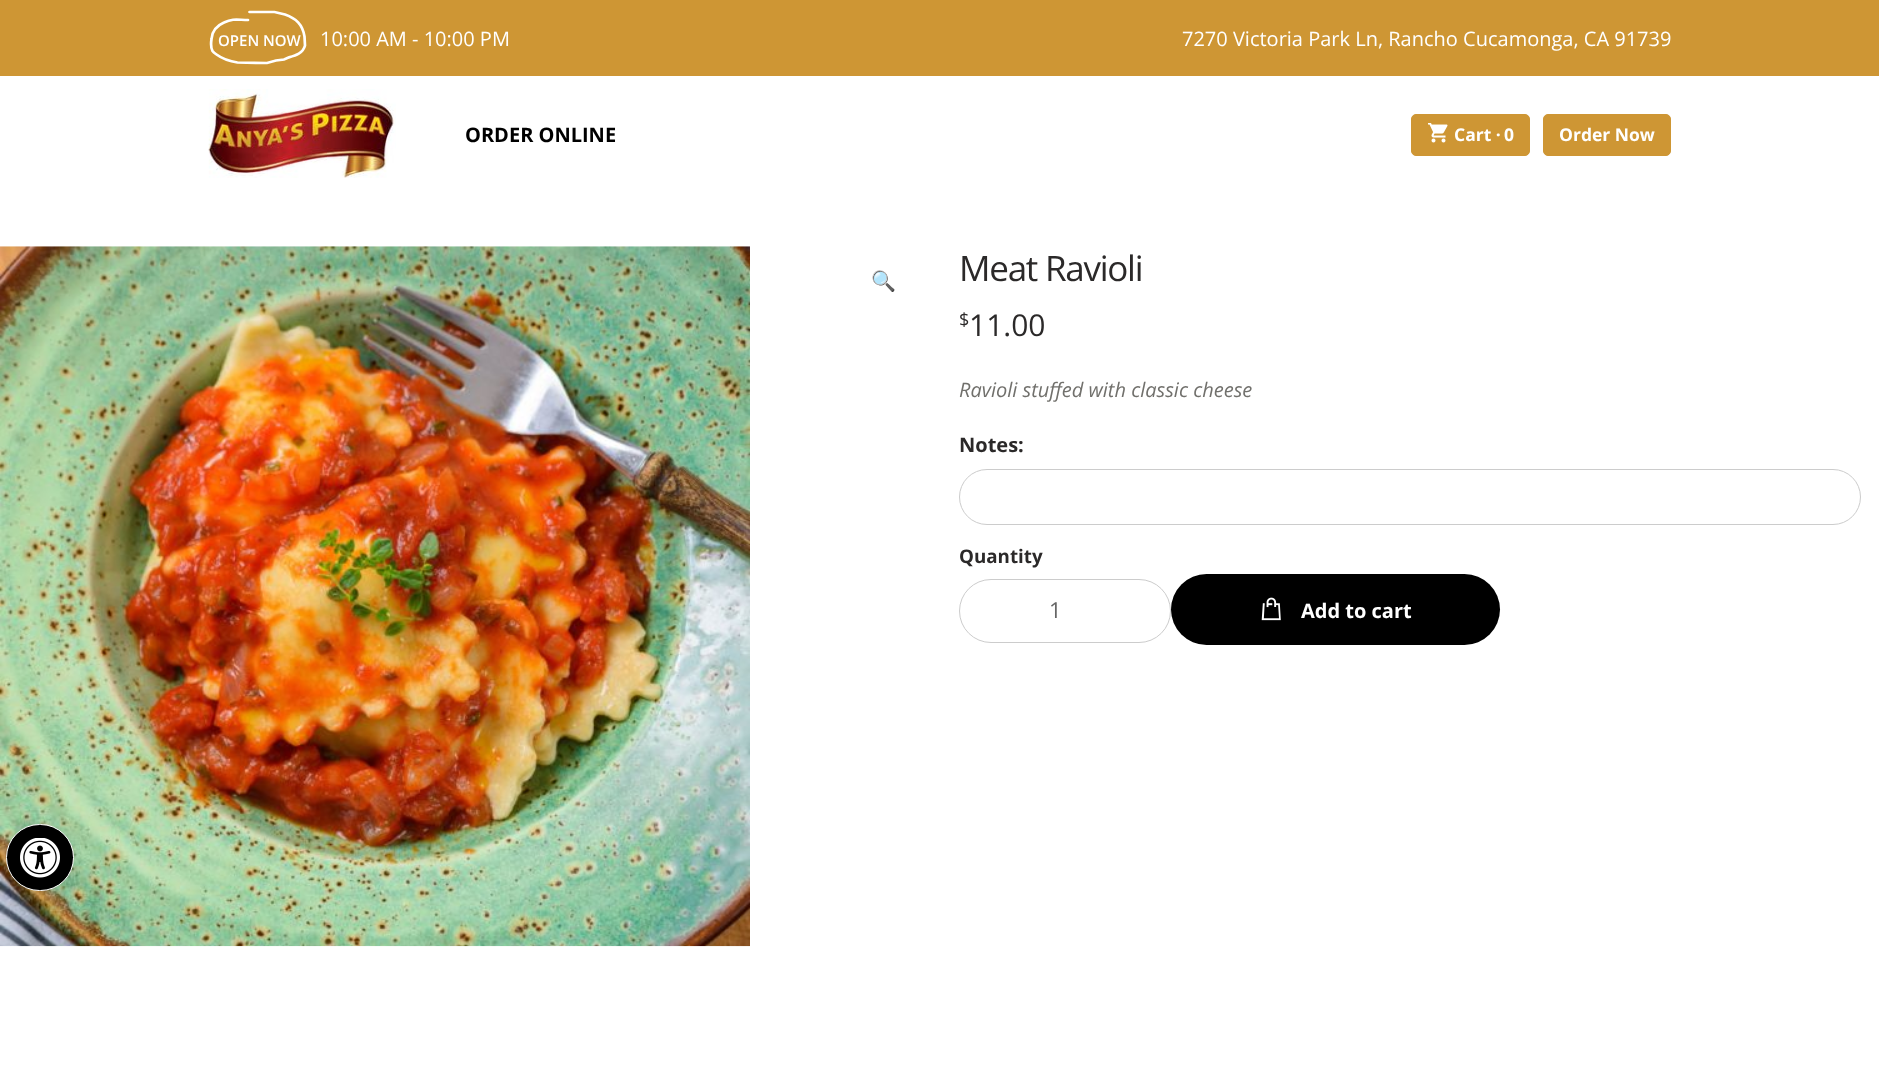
<?xml version="1.0" encoding="UTF-8"?>
<svg xmlns="http://www.w3.org/2000/svg" width="1879" height="1076">
    <defs>
        <filter id="blur1" x="-50%" y="-200%" width="200%" height="500%"><feGaussianBlur stdDeviation="6"/></filter>
    </defs>
    <rect width="100%" height="100%" fill="#FFFFFF"/>
    <rect x="0" y="0" width="1879" height="76" fill="#CE9634"/>
    <path d="M 248 20 C 238 20 233.5 18 224 22.5 C 217 25.5 212 31.5 211.5 39 C 211 42.5 210.5 47.5 212.5 51 C 213.5 52.5 215 53.5 216.5 54.5 C 222 58.5 230.5 61.5 237.5 62.5 L 267 63 L 276 60.5 L 284 59.5 L 288.5 57.5 C 295.5 55.5 303 53.5 305 45.5 L 304.5 36.5 C 302.5 24 296 18.5 285 14.5 L 274.5 12 H 249.5" fill="none" stroke="#FFFFFF" stroke-width="2.7" stroke-linecap="round"/>
    <text x="218" y="46" font-family="Open Sans" font-size="15" font-weight="600" fill="#FFFFFF">OPEN NOW</text>
    <text x="320" y="46" font-family="Open Sans" font-size="20" fill="#FFFFFF">10:00 AM - 10:00 PM</text>
    <text x="1182" y="46" font-family="Open Sans" font-size="20" fill="#FFFFFF">7270 Victoria Park Ln, Rancho Cucamonga, CA 91739</text>
    <image x="208" y="89" width="188" height="89" href="img_01.png"/>
    <text x="465" y="142" font-family="Open Sans" font-size="20" font-weight="700" fill="#000000">ORDER ONLINE</text>
    <rect x="1411.5" y="114.5" width="118" height="41" rx="4.5" fill="#CE9634" stroke="#CE9634"/>
    <image x="1428" y="123" width="20" height="20" href="img_02.png"/>
    <text x="1454" y="141" font-family="Open Sans" font-size="17.5" font-weight="700" fill="#FFFFFF">Cart ·</text>
    <text x="1504" y="141" font-family="Open Sans" font-size="17.5" font-weight="700" fill="#FFFFFF">0</text>
    <rect x="1543.5" y="114.5" width="127" height="41" rx="4.5" fill="#CE9634" stroke="#CE9634"/>
    <text x="1559" y="141" font-family="Open Sans" font-size="17.5" font-weight="700" fill="#FFFFFF">Order Now</text>
    <image x="0" y="246" width="750" height="701" href="img_03.png"/>
    <text x="871" y="288" font-family="Noto Color Emoji" font-size="20" fill="#2B2929">🔍</text>
    <text x="959" y="281" font-family="Open Sans" font-size="35" letter-spacing="-1.25" fill="#2B2929">Meat Ravioli</text>
    <text x="959" y="326" font-family="Open Sans" font-size="18" fill="#2B2929">$</text>
    <text x="969" y="336" font-family="Open Sans" font-size="30" fill="#2B2929">11.00</text>
    <text x="959" y="397" font-family="Open Sans" font-size="20" font-style="italic" fill="#71706C">Ravioli stuffed with classic cheese</text>
    <text x="959" y="452" font-family="Open Sans" font-size="20" font-weight="700" fill="#2B2929">Notes:</text>
    <rect x="959.5" y="469.5" width="901" height="55" rx="27.5" fill="none" stroke="#CCCCCC"/>
    <text x="959" y="563" font-family="Open Sans" font-size="18.75" font-weight="700" fill="#2B2929">Quantity</text>
    <rect x="959.5" y="579.5" width="211" height="63" rx="31.5" fill="none" stroke="#CCCCCC"/>
    <text x="1049" y="618" font-family="Open Sans" font-size="22" fill="#666666">1</text>
    <rect x="1171" y="574" width="329" height="71" rx="35.5" fill="#000000"/>
    <image x="1261" y="597" width="20" height="24" href="img_04.png"/>
    <text x="1301" y="618" font-family="Open Sans" font-size="20" font-weight="700" fill="#FFFFFF">Add to cart</text>
    <rect x="6" y="824" width="68" height="67" rx="33.5" fill="#000000" fill-opacity="0.1" filter="url(#blur1)"/>
    <rect x="6.5" y="824.5" width="67" height="66" rx="33" fill="#000000" stroke="#FFFFFF"/>
    <image x="20" y="838" width="40" height="40" href="img_05.png"/>
</svg>
